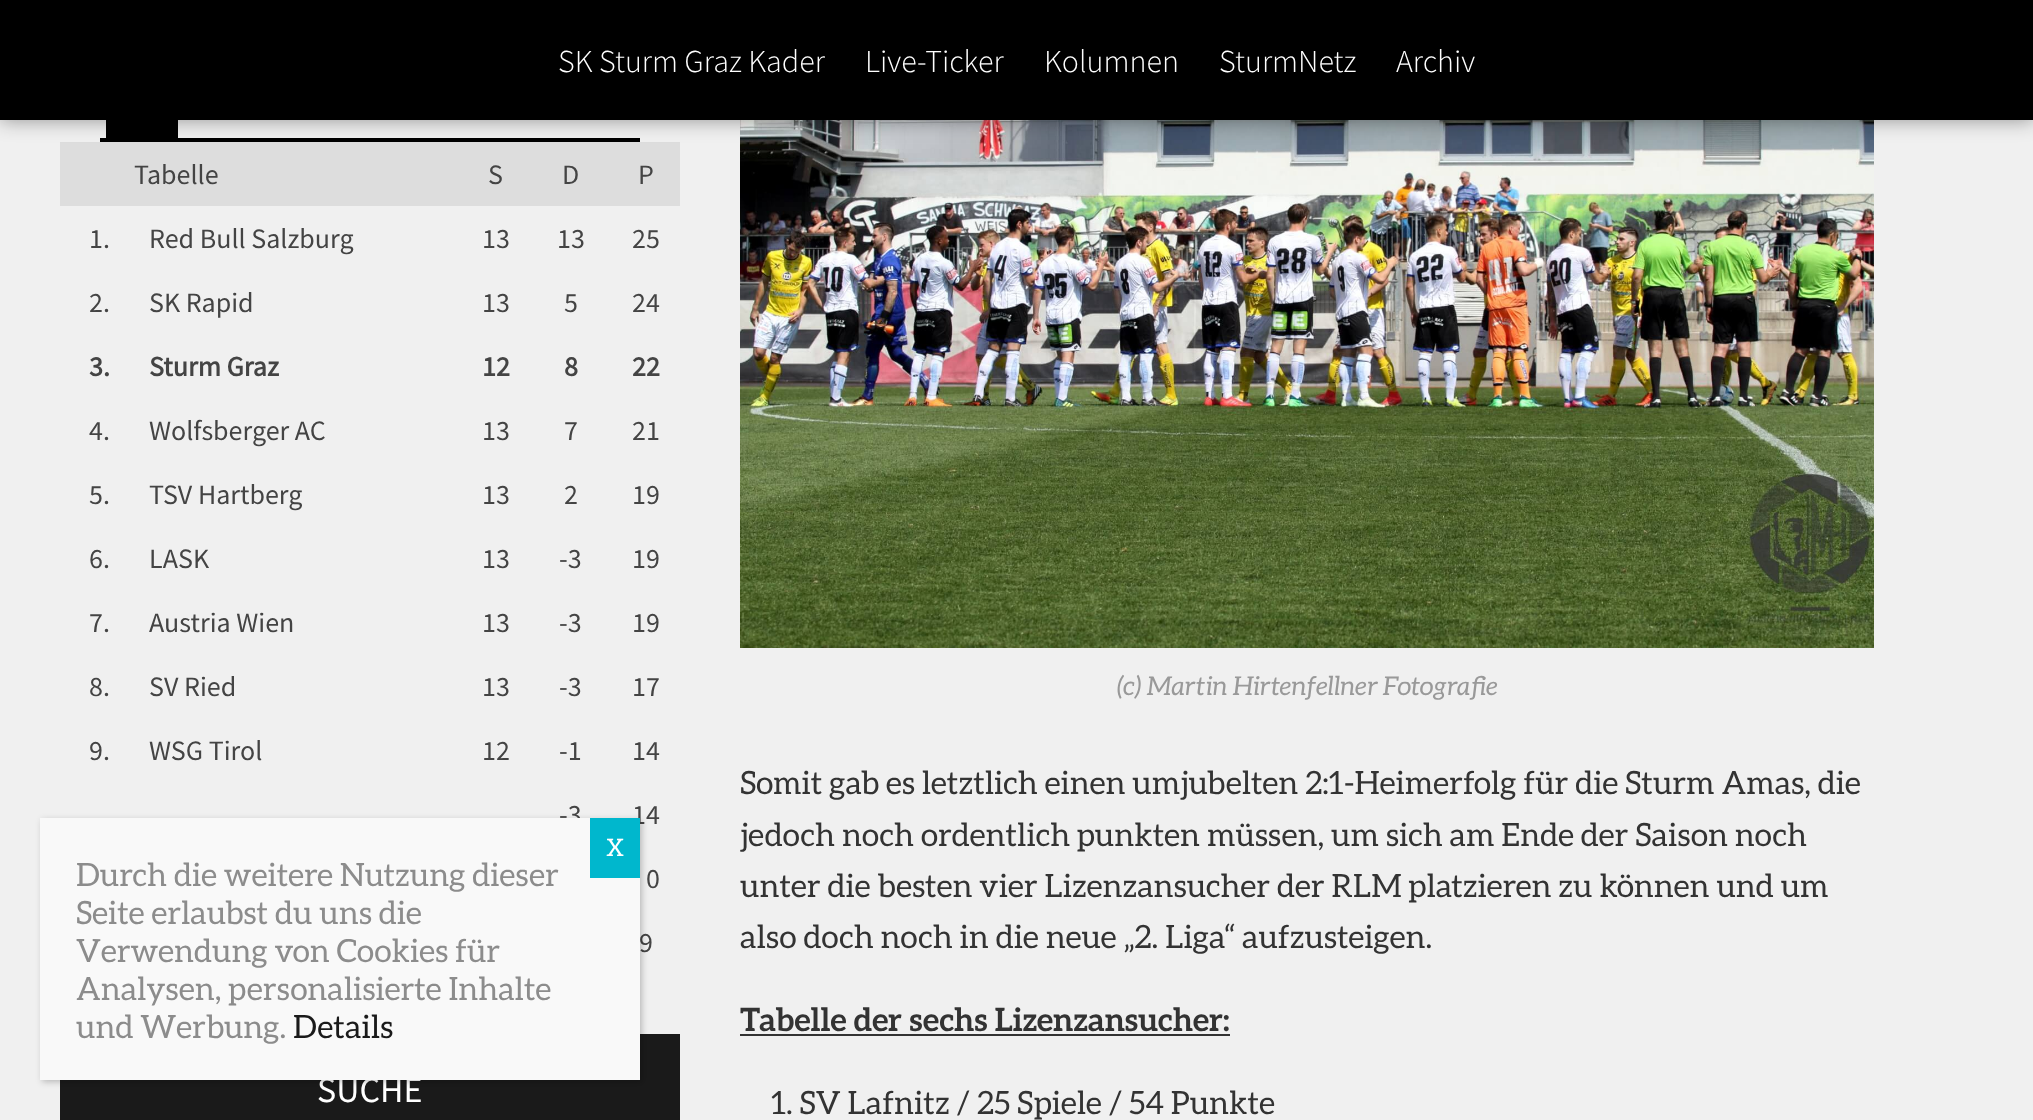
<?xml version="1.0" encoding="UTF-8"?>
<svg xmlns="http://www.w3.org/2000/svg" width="2033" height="1120">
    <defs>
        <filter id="blur1" x="-50%" y="-200%" width="200%" height="500%"><feGaussianBlur stdDeviation="10"/></filter>
        <filter id="blur2" x="-50%" y="-200%" width="200%" height="500%"><feGaussianBlur stdDeviation="3"/></filter>
    </defs>
    <rect width="100%" height="100%" fill="#F0F0F0"/>
    <rect x="100" y="138" width="540" height="4" fill="#000000"/>
    <rect x="106" y="120" width="72" height="18" fill="#000000"/>
    <rect x="60" y="142" width="620" height="64" fill="#DDDDDD"/>
    <image x="740" y="120" width="1134" height="528" href="img_01.png"/>
    <rect x="0" y="0" width="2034" height="120" fill="#000000" fill-opacity="0.4" filter="url(#blur1)"/>
    <rect x="0" y="0" width="2033" height="120" fill="#000000"/>
    <text x="558" y="72" font-family="Source Sans Pro" font-size="32" font-weight="300" fill="#FFFFFF">SK Sturm Graz Kader</text>
    <text x="865" y="72" font-family="Source Sans Pro" font-size="32" font-weight="300" fill="#FFFFFF">Live-Ticker</text>
    <text x="1044" y="72" font-family="Source Sans Pro" font-size="32" font-weight="300" fill="#FFFFFF">Kolumnen</text>
    <text x="1219" y="72" font-family="Source Sans Pro" font-size="32" font-weight="300" fill="#FFFFFF">SturmNetz</text>
    <text x="1396" y="72" font-family="Source Sans Pro" font-size="32" font-weight="300" fill="#FFFFFF">Archiv</text>
    <text x="134" y="184" font-family="Source Sans Pro" font-size="28" fill="#444444">Tabelle</text>
    <text x="488" y="184" font-family="Source Sans Pro" font-size="28" fill="#444444">S</text>
    <text x="562" y="184" font-family="Source Sans Pro" font-size="28" fill="#444444">D</text>
    <text x="638" y="184" font-family="Source Sans Pro" font-size="28" fill="#444444">P</text>
    <text x="89" y="248" font-family="Source Sans Pro" font-size="28" fill="#444444">1.</text>
    <text x="149" y="248" font-family="Source Sans Pro" font-size="28" fill="#444444">Red Bull Salzburg</text>
    <text x="482" y="248" font-family="Source Sans Pro" font-size="28" fill="#444444">13</text>
    <text x="557" y="248" font-family="Source Sans Pro" font-size="28" fill="#444444">13</text>
    <text x="632" y="248" font-family="Source Sans Pro" font-size="28" fill="#444444">25</text>
    <text x="89" y="312" font-family="Source Sans Pro" font-size="28" fill="#444444">2.</text>
    <text x="149" y="312" font-family="Source Sans Pro" font-size="28" fill="#444444">SK Rapid</text>
    <text x="482" y="312" font-family="Source Sans Pro" font-size="28" fill="#444444">13</text>
    <text x="564" y="312" font-family="Source Sans Pro" font-size="28" fill="#444444">5</text>
    <text x="632" y="312" font-family="Source Sans Pro" font-size="28" fill="#444444">24</text>
    <text x="89" y="376" font-family="Source Sans Pro" font-size="28" font-weight="700" fill="#444444">3.</text>
    <text x="149" y="376" font-family="Source Sans Pro" font-size="28" font-weight="700" fill="#444444">Sturm Graz</text>
    <text x="482" y="376" font-family="Source Sans Pro" font-size="28" font-weight="700" fill="#444444">12</text>
    <text x="564" y="376" font-family="Source Sans Pro" font-size="28" font-weight="700" fill="#444444">8</text>
    <text x="632" y="376" font-family="Source Sans Pro" font-size="28" font-weight="700" fill="#444444">22</text>
    <text x="89" y="440" font-family="Source Sans Pro" font-size="28" fill="#444444">4.</text>
    <text x="149" y="440" font-family="Source Sans Pro" font-size="28" fill="#444444">Wolfsberger AC</text>
    <text x="482" y="440" font-family="Source Sans Pro" font-size="28" fill="#444444">13</text>
    <text x="564" y="440" font-family="Source Sans Pro" font-size="28" fill="#444444">7</text>
    <text x="632" y="440" font-family="Source Sans Pro" font-size="28" fill="#444444">21</text>
    <text x="89" y="504" font-family="Source Sans Pro" font-size="28" fill="#444444">5.</text>
    <text x="149" y="504" font-family="Source Sans Pro" font-size="28" fill="#444444">TSV Hartberg</text>
    <text x="482" y="504" font-family="Source Sans Pro" font-size="28" fill="#444444">13</text>
    <text x="564" y="504" font-family="Source Sans Pro" font-size="28" fill="#444444">2</text>
    <text x="632" y="504" font-family="Source Sans Pro" font-size="28" fill="#444444">19</text>
    <text x="89" y="568" font-family="Source Sans Pro" font-size="28" fill="#444444">6.</text>
    <text x="149" y="568" font-family="Source Sans Pro" font-size="28" fill="#444444">LASK</text>
    <text x="482" y="568" font-family="Source Sans Pro" font-size="28" fill="#444444">13</text>
    <text x="559" y="568" font-family="Source Sans Pro" font-size="28" fill="#444444">-3</text>
    <text x="632" y="568" font-family="Source Sans Pro" font-size="28" fill="#444444">19</text>
    <text x="89" y="632" font-family="Source Sans Pro" font-size="28" fill="#444444">7.</text>
    <text x="149" y="632" font-family="Source Sans Pro" font-size="28" fill="#444444">Austria Wien</text>
    <text x="482" y="632" font-family="Source Sans Pro" font-size="28" fill="#444444">13</text>
    <text x="559" y="632" font-family="Source Sans Pro" font-size="28" fill="#444444">-3</text>
    <text x="632" y="632" font-family="Source Sans Pro" font-size="28" fill="#444444">19</text>
    <text x="89" y="696" font-family="Source Sans Pro" font-size="28" fill="#444444">8.</text>
    <text x="149" y="696" font-family="Source Sans Pro" font-size="28" fill="#444444">SV Ried</text>
    <text x="482" y="696" font-family="Source Sans Pro" font-size="28" fill="#444444">13</text>
    <text x="559" y="696" font-family="Source Sans Pro" font-size="28" fill="#444444">-3</text>
    <text x="632" y="696" font-family="Source Sans Pro" font-size="28" fill="#444444">17</text>
    <text x="89" y="760" font-family="Source Sans Pro" font-size="28" fill="#444444">9.</text>
    <text x="149" y="760" font-family="Source Sans Pro" font-size="28" fill="#444444">WSG Tirol</text>
    <text x="482" y="760" font-family="Source Sans Pro" font-size="28" fill="#444444">12</text>
    <text x="559" y="760" font-family="Source Sans Pro" font-size="28" fill="#444444">-1</text>
    <text x="632" y="760" font-family="Source Sans Pro" font-size="28" fill="#444444">14</text>
    <text x="559" y="824" font-family="Source Sans Pro" font-size="28" fill="#444444">-3</text>
    <text x="632" y="824" font-family="Source Sans Pro" font-size="28" fill="#444444">14</text>
    <text x="646" y="888" font-family="Source Sans Pro" font-size="28" fill="#444444">0</text>
    <text x="639" y="952" font-family="Source Sans Pro" font-size="28" fill="#444444">9</text>
    <rect x="60" y="1034" width="620" height="86" fill="#1A1A1A"/>
    <text x="317" y="1102" font-family="Source Sans Pro" font-size="36" fill="#FFFFFF">SUCHE</text>
    <text x="1117" y="695" font-family="Aleo" font-size="26" font-style="italic" fill="#999999">(c) Martin Hirtenfellner Fotografie</text>
    <text font-family="Aleo" font-size="32" fill="#333333">
        <tspan x="740" y="794">Somit gab es letztlich einen umjubelten 2:1-Heimerfolg für die Sturm Amas, die</tspan>
        <tspan x="740" y="846">jedoch noch ordentlich punkten müssen, um sich am Ende der Saison noch</tspan>
        <tspan x="740" y="897">unter die besten vier Lizenzansucher der RLM platzieren zu können und um</tspan>
        <tspan x="740" y="948">also doch noch in die neue „2. Liga“ aufzusteigen.</tspan>
    </text>
    <text x="740" y="1031" font-family="Aleo" font-size="32" font-weight="700" fill="#333333">Tabelle der sechs Lizenzansucher:</text>
    <rect x="740" y="1034" width="490" height="2" fill="#333333"/>
    <text x="771" y="1114" font-family="Aleo" font-size="32" fill="#333333">1. SV Lafnitz / 25 Spiele / 54 Punkte</text>
    <rect x="42" y="820" width="600" height="262" fill="#020202" fill-opacity="0.23" filter="url(#blur2)"/>
    <rect x="40" y="818" width="600" height="262" fill="#F9F9F9"/>
    <rect x="590" y="818" width="50" height="60" fill="#00B7CD"/>
    <text x="606" y="856" font-family="Aleo" font-size="24" fill="#FFFFFF">X</text>
    <text font-family="Aleo" font-size="32" fill="#8C8C8C">
        <tspan x="76" y="886">Durch die weitere Nutzung dieser</tspan>
        <tspan x="76" y="924">Seite erlaubst du uns die</tspan>
        <tspan x="76" y="962">Verwendung von Cookies für</tspan>
        <tspan x="76" y="1000">Analysen, personalisierte Inhalte</tspan>
        <tspan x="76" y="1038">und Werbung.</tspan>
    </text>
    <text x="293" y="1038" font-family="Aleo" font-size="32" fill="#1A1A1A">Details</text>
</svg>
